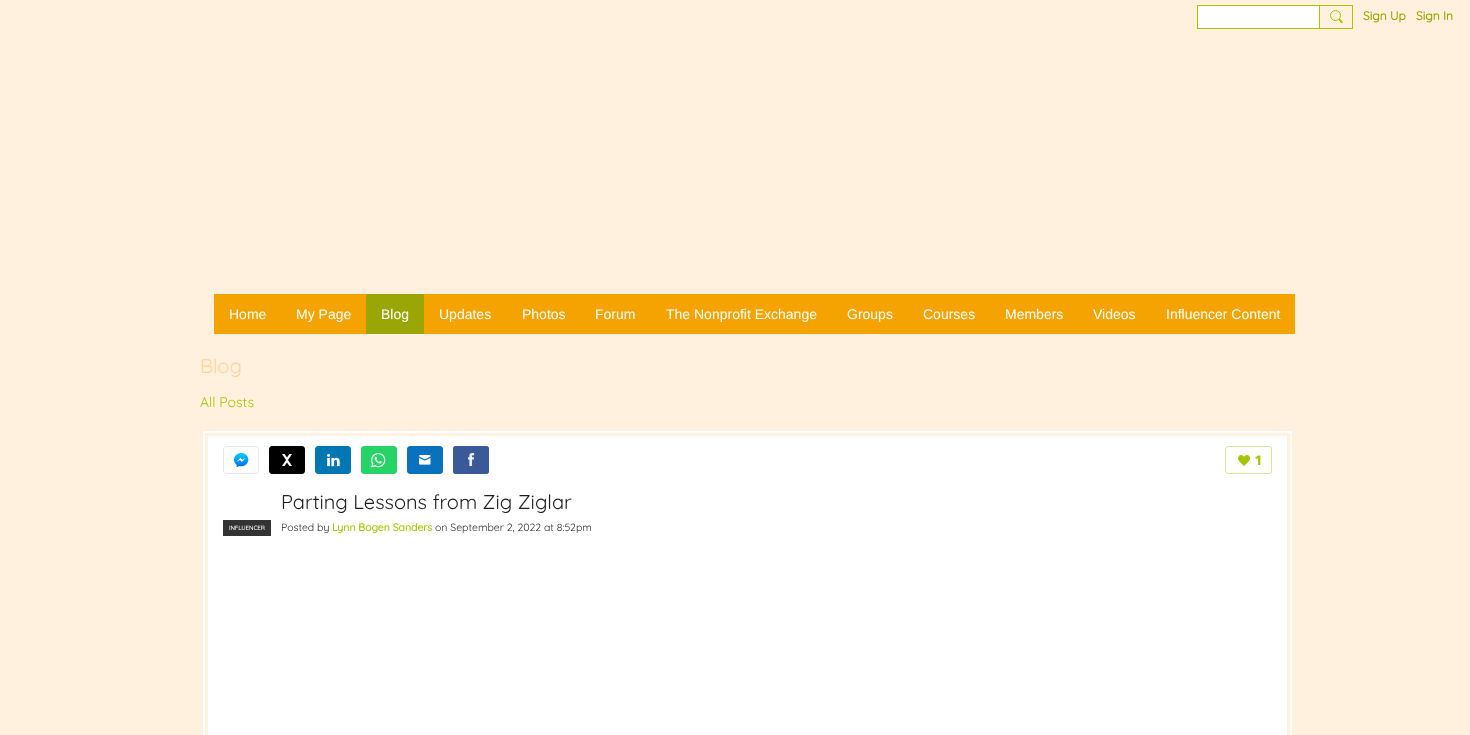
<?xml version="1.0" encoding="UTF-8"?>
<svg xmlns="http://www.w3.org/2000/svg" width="1470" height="735">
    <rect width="100%" height="100%" fill="#FFF1DE"/>
    <rect x="1197.5" y="5.5" width="122" height="23" fill="#FFFFFF" stroke="#A5C500"/>
    <rect x="1319.5" y="5.5" width="33" height="23" fill="none" stroke="#A5C500"/>
    <circle cx="1335.5" cy="15.5" r="5" fill="none" stroke="#A5C500"/>
    <path d="M 1340.5 19 L 1342.5 21.5 C 1343 22 1343 22.5 1342.5 23 C 1341.5 24 1339.5 21.5 1339 20.5 C 1338 19.5 1339.5 18.5 1340.5 19 Z" fill="#A5C500"/>
    <text x="1363" y="20" font-family="Quicksand" font-size="12" font-weight="700" fill="#99A606">Sign Up</text>
    <text x="1416" y="20" font-family="Quicksand" font-size="12" font-weight="700" fill="#99A606">Sign In</text>
    <rect x="214" y="294" width="152" height="40" fill="#F5A300"/>
    <text x="229" y="319" font-family="Liberation Sans" font-size="14" fill="#FFFFFF">Home</text>
    <text x="296" y="319" font-family="Liberation Sans" font-size="14" fill="#FFFFFF">My Page</text>
    <rect x="366" y="294" width="58" height="40" fill="#99A606"/>
    <text x="381" y="319" font-family="Liberation Sans" font-size="14" fill="#FFFFFF">Blog</text>
    <rect x="424" y="294" width="871" height="40" fill="#F5A300"/>
    <text x="439" y="319" font-family="Liberation Sans" font-size="14" fill="#FFFFFF">Updates</text>
    <text x="522" y="319" font-family="Liberation Sans" font-size="14" fill="#FFFFFF">Photos</text>
    <text x="595" y="319" font-family="Liberation Sans" font-size="14" fill="#FFFFFF">Forum</text>
    <text x="666" y="319" font-family="Liberation Sans" font-size="14" fill="#FFFFFF">The Nonprofit Exchange</text>
    <text x="847" y="319" font-family="Liberation Sans" font-size="14" fill="#FFFFFF">Groups</text>
    <text x="923" y="319" font-family="Liberation Sans" font-size="14" fill="#FFFFFF">Courses</text>
    <text x="1005" y="319" font-family="Liberation Sans" font-size="14" fill="#FFFFFF">Members</text>
    <text x="1093" y="319" font-family="Liberation Sans" font-size="14" fill="#FFFFFF">Videos</text>
    <text x="1166" y="319" font-family="Liberation Sans" font-size="14" fill="#FFFFFF">Influencer Content</text>
    <text x="200" y="373" font-family="Quicksand" font-size="20" font-weight="300" fill="#FFD59C">Blog</text>
    <text x="200" y="407" font-family="Quicksand" font-size="14" font-weight="300" fill="#A5C500">All Posts</text>
    <rect x="203" y="431" width="1089" height="304" fill="#FFFFFF"/>
    <rect x="206.5" y="434.5" width="1082" height="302" fill="none" stroke="#FEF3DE" stroke-width="3"/>
    <image x="223" y="446" width="36" height="28" href="img_01.png"/>
    <image x="269" y="446" width="36" height="28" href="img_02.png"/>
    <image x="315" y="446" width="36" height="28" href="img_03.png"/>
    <image x="361" y="446" width="36" height="28" href="img_04.png"/>
    <image x="407" y="446" width="36" height="28" href="img_05.png"/>
    <rect x="453" y="446" width="36" height="28" rx="3" fill="#3B5998"/>
    <image x="453" y="446" width="36" height="28" href="img_06.png"/>
    <rect x="1225.5" y="446.5" width="46" height="27" rx="2.5" fill="none" stroke="#DBE899"/>
    <image x="1238" y="455" width="12" height="11" href="img_07.png"/>
    <text x="1255" y="465" font-family="Fira Sans" font-size="14" font-weight="700" fill="#A5C500">1</text>
    <rect x="223" y="520" width="48" height="16" fill="#333333"/>
    <text x="229" y="530" font-family="Quicksand" font-size="6" font-weight="700" fill="#FFFFFF">INFLUENCER</text>
    <text x="281" y="509" font-family="Quicksand" font-size="20" font-weight="300" fill="#1F1F1F">Parting Lessons from Zig Ziglar</text>
    <text x="281" y="531" font-family="Quicksand" font-size="10.5" font-weight="300" fill="#1F1F1F">Posted by</text>
    <text x="332" y="531" font-family="Quicksand" font-size="10.5" font-weight="700" fill="#A5C500">Lynn Bogen Sanders</text>
    <text x="435" y="531" font-family="Quicksand" font-size="10.5" font-weight="300" fill="#1F1F1F">on September 2, 2022 at 8:52pm</text>
</svg>
